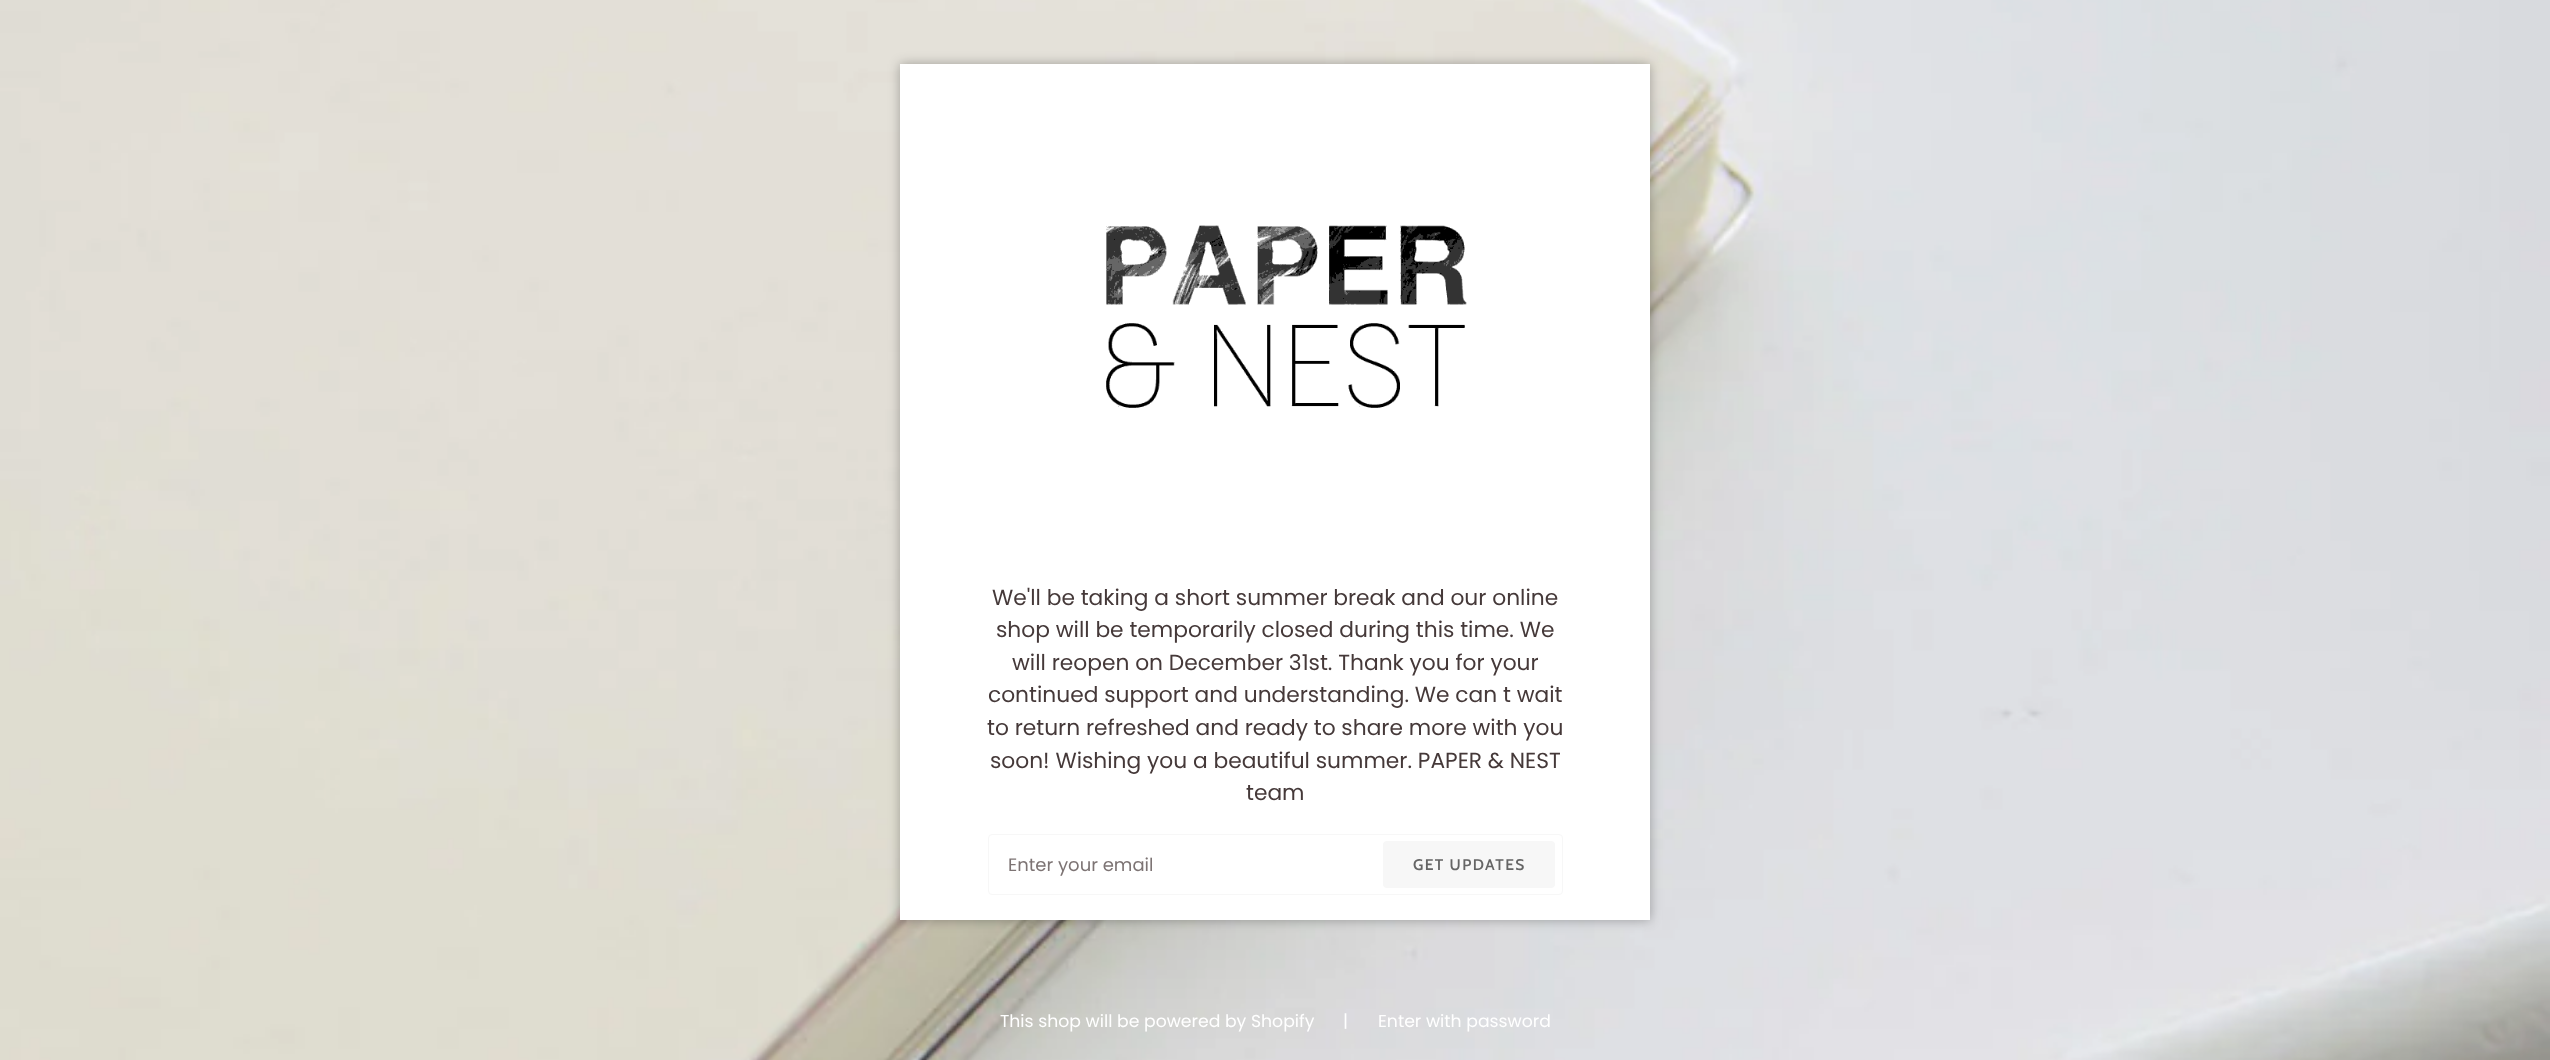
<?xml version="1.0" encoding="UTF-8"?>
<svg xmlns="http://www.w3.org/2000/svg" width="2550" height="1060">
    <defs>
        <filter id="blur1" x="-50%" y="-200%" width="200%" height="500%"><feGaussianBlur stdDeviation="6"/></filter>
    </defs>
    <rect width="100%" height="100%" fill="#FFFFFF"/>
    <image x="0" y="0" width="2550" height="1060" href="img_01.png"/>
    <rect x="900" y="64" width="750" height="856" fill="#000000" fill-opacity="0.3" filter="url(#blur1)"/>
    <rect x="900" y="64" width="750" height="856" fill="#FFFFFF"/>
    <image x="1106" y="225" width="361" height="183" href="img_02.png"/>
    <text x="992" y="605" font-family="Poppins" font-size="21.75" fill="#453939">We'll be taking a short summer break and our online</text>
    <text x="996" y="637" font-family="Poppins" font-size="21.75" fill="#453939">shop will be temporarily closed during this time. We</text>
    <text x="1012" y="670" font-family="Poppins" font-size="21.75" fill="#453939">will reopen on December 31st. Thank you for your</text>
    <text x="988" y="702" font-family="Poppins" font-size="21.75" fill="#453939">continued support and understanding. We can t wait</text>
    <text x="987" y="735" font-family="Poppins" font-size="21.75" fill="#453939">to return refreshed and ready to share more with you</text>
    <text x="990" y="768" font-family="Poppins" font-size="21.75" fill="#453939">soon! Wishing you a beautiful summer. PAPER &amp; NEST</text>
    <text x="1246" y="800" font-family="Poppins" font-size="21.75" fill="#453939">team</text>
    <rect x="988.5" y="834.5" width="574" height="60" rx="3.5" fill="none" stroke="#F7F7F7"/>
    <text x="1008" y="871" font-family="Poppins" font-size="18" fill="#7D7474">Enter your email</text>
    <rect x="1383" y="841" width="172" height="47" rx="4" fill="#F7F7F7"/>
    <text x="1413" y="870" font-family="Cabin" font-size="15.5" font-weight="600" letter-spacing="1.4" fill="#656565">GET UPDATES</text>
    <text x="1000" y="1027" font-family="Poppins" font-size="17.25" fill="#FFFFFF">This shop will be powered by Shopify</text>
    <text x="1343" y="1027" font-family="Poppins" font-size="17.25" fill="#FFFFFF">|</text>
    <text x="1378" y="1027" font-family="Poppins" font-size="17.25" fill="#FFFFFF">Enter with password</text>
</svg>
